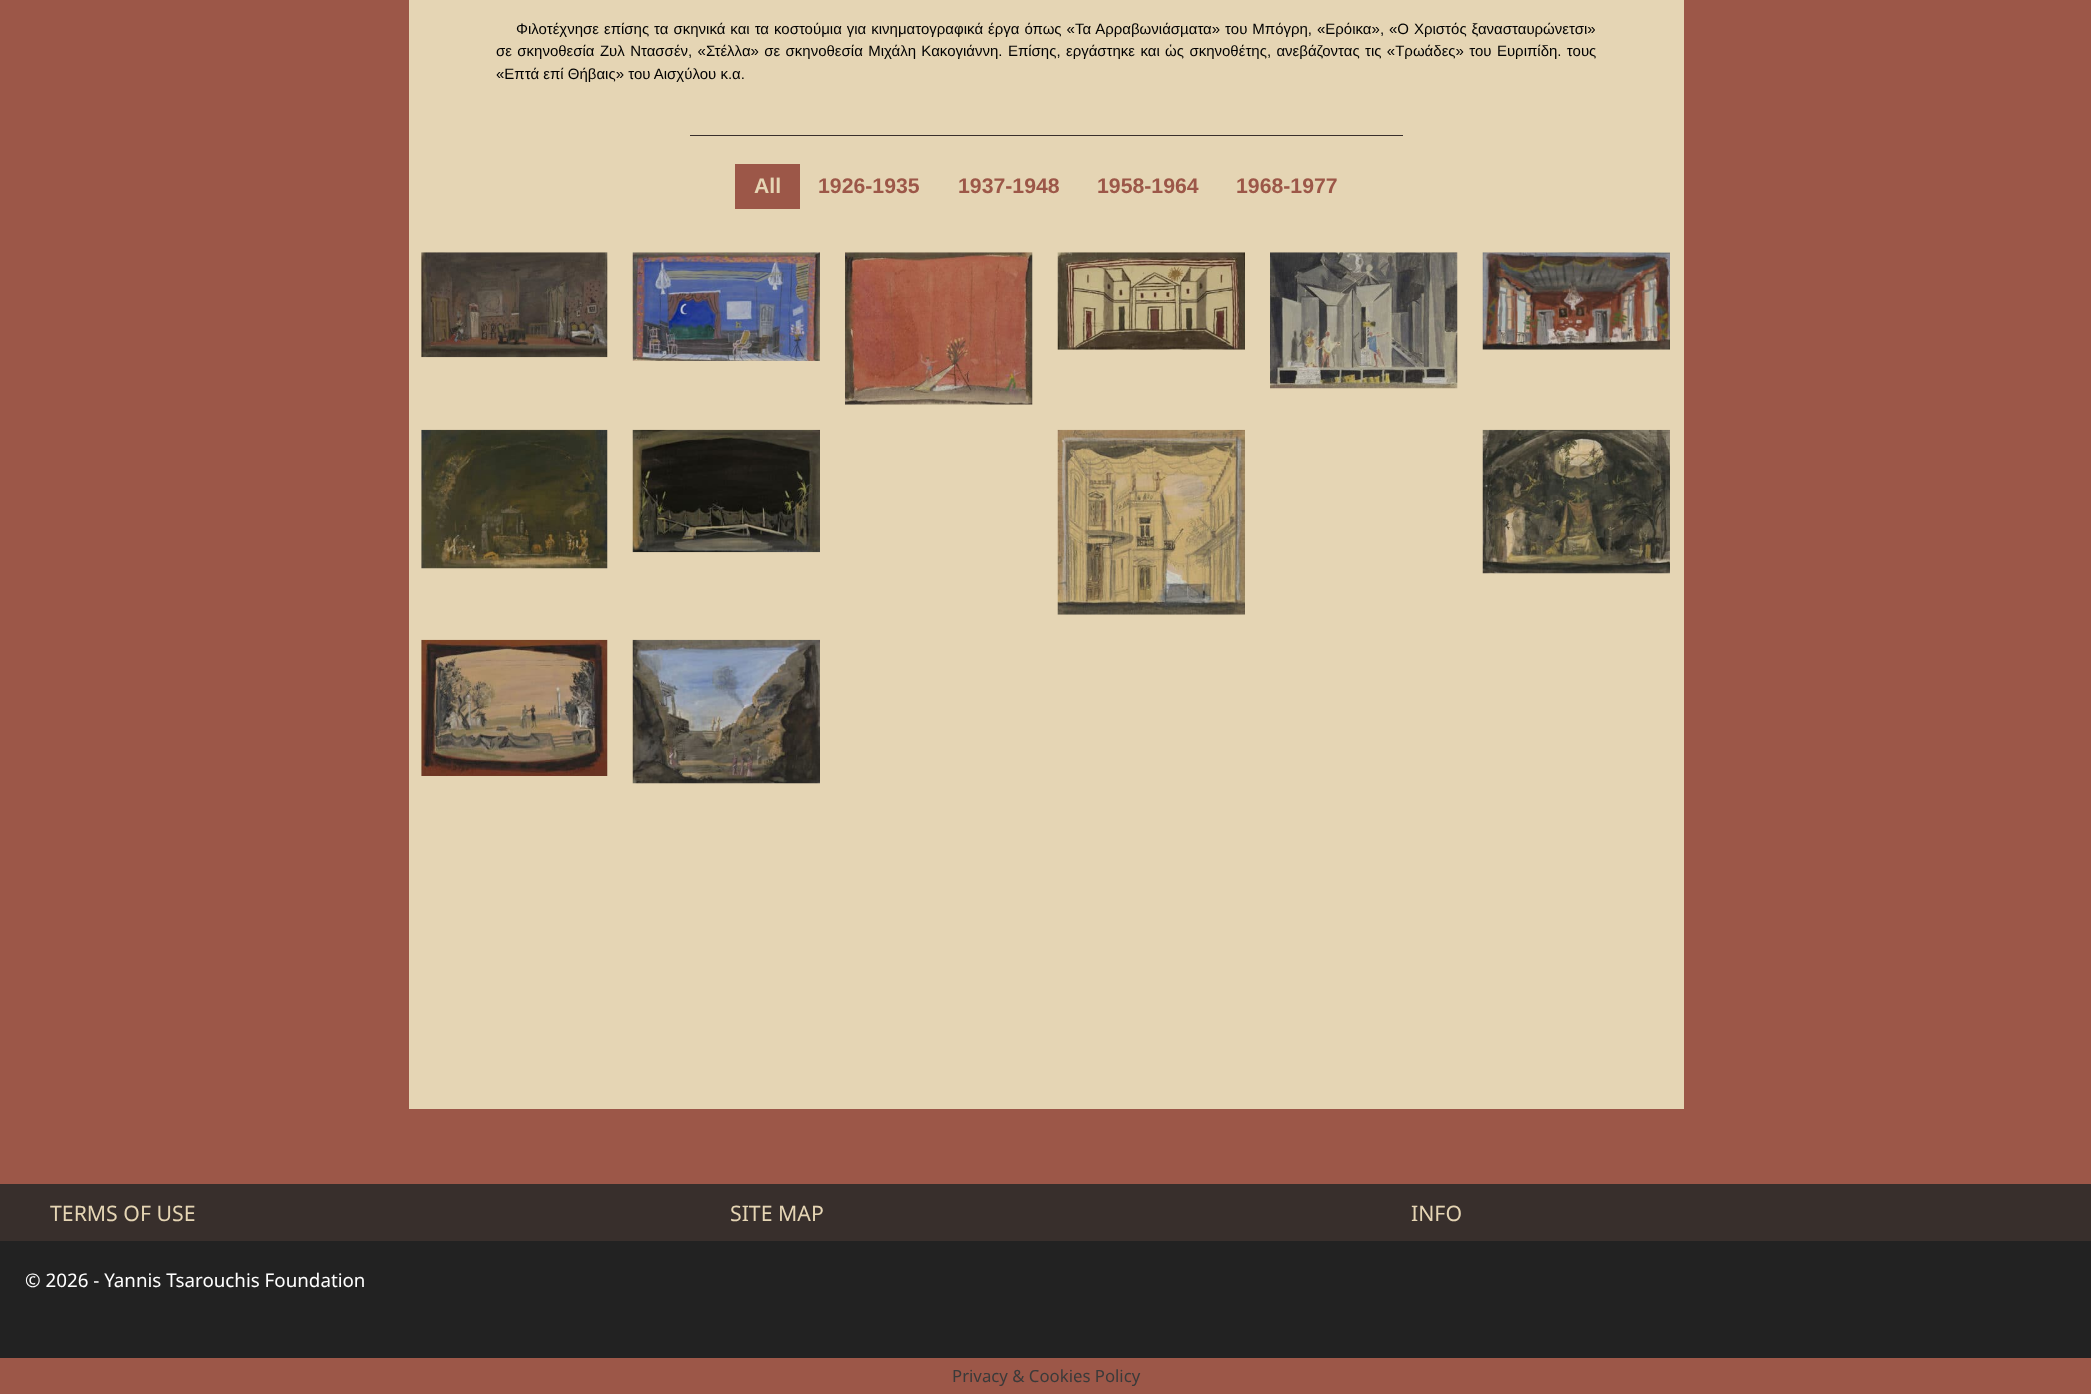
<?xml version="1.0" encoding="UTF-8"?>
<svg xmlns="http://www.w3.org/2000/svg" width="2091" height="1394">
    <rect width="100%" height="100%" fill="#9C5748"/>
    <rect x="409" y="0" width="1275" height="1109" fill="#E5D5B4"/>
    <text x="516" y="34" word-spacing="0.8" font-family="Liberation Sans" font-size="15" fill="#000000">Φιλοτέχνησε επίσης τα σκηνικά και τα κοστούμια για κινηματογραφικά έργα όπως «Τα Αρραβωνιάσµατα» του Μπόγρη, «Ερόικα», «Ο Χριστός ξανασταυρώνετσι»</text>
    <text font-family="Liberation Sans" font-size="15" fill="#000000">
        <tspan x="496" y="56" word-spacing="1.2">σε σκηνοθεσία Ζυλ Ντασσέν, «Στέλλα» σε σκηνοθεσία Μιχάλη Κακογιάννη. Επίσης, εργάστηκε και ὡς σκηνοθέτης, ανεβάζοντας τις «Τρωάδες» του Ευριπίδη. τους</tspan>
        <tspan x="496" y="79">«Επτά επί Θήβαις» του Αισχύλου κ.α.</tspan>
    </text>
    <rect x="690" y="135" width="713" height="1" fill="#382F2C"/>
    <rect x="735" y="164" width="65" height="45" fill="#9C5748"/>
    <text x="754" y="193" font-family="Liberation Sans" font-size="21.25" font-weight="700" fill="#E5D5B4">All</text>
    <text x="818" y="193" font-family="Liberation Sans" font-size="21.25" font-weight="700" fill="#9C5748">1926-1935</text>
    <text x="958" y="193" font-family="Liberation Sans" font-size="21.25" font-weight="700" fill="#9C5748">1937-1948</text>
    <text x="1097" y="193" font-family="Liberation Sans" font-size="21.25" font-weight="700" fill="#9C5748">1958-1964</text>
    <text x="1236" y="193" font-family="Liberation Sans" font-size="21.25" font-weight="700" fill="#9C5748">1968-1977</text>
    <image x="421" y="252" width="187" height="106" href="img_01.png"/>
    <image x="632" y="252" width="188" height="109" href="img_02.png"/>
    <image x="845" y="252" width="188" height="153" href="img_03.png"/>
    <image x="1057" y="252" width="188" height="98" href="img_04.png"/>
    <image x="1270" y="252" width="188" height="137" href="img_05.png"/>
    <image x="1482" y="252" width="188" height="98" href="img_06.png"/>
    <image x="421" y="429" width="187" height="140" href="img_07.png"/>
    <image x="632" y="429" width="188" height="124" href="img_08.png"/>
    <image x="1057" y="429" width="188" height="186" href="img_09.png"/>
    <image x="1482" y="429" width="188" height="145" href="img_10.png"/>
    <image x="421" y="639" width="187" height="137" href="img_11.png"/>
    <image x="632" y="639" width="188" height="145" href="img_12.png"/>
    <rect x="0" y="1184" width="2091" height="57" fill="#382F2C"/>
    <text x="50" y="1221" font-family="Noto Sans" font-size="21.25" fill="#E5D5B4">TERMS OF USE</text>
    <text x="730" y="1221" font-family="Noto Sans" font-size="21.25" fill="#E5D5B4">SITE MAP</text>
    <text x="1411" y="1221" font-family="Noto Sans" font-size="21.25" fill="#E5D5B4">INFO</text>
    <rect x="0" y="1241" width="2091" height="117" fill="#222222"/>
    <text x="25" y="1287" font-family="Noto Sans" font-size="18.75" fill="#FFFFFF">© 2026 - Yannis Tsarouchis Foundation</text>
    <text x="952" y="1382" font-family="Noto Sans" font-size="16.75" fill="#3A3A3A">Privacy &amp; Cookies Policy</text>
</svg>
